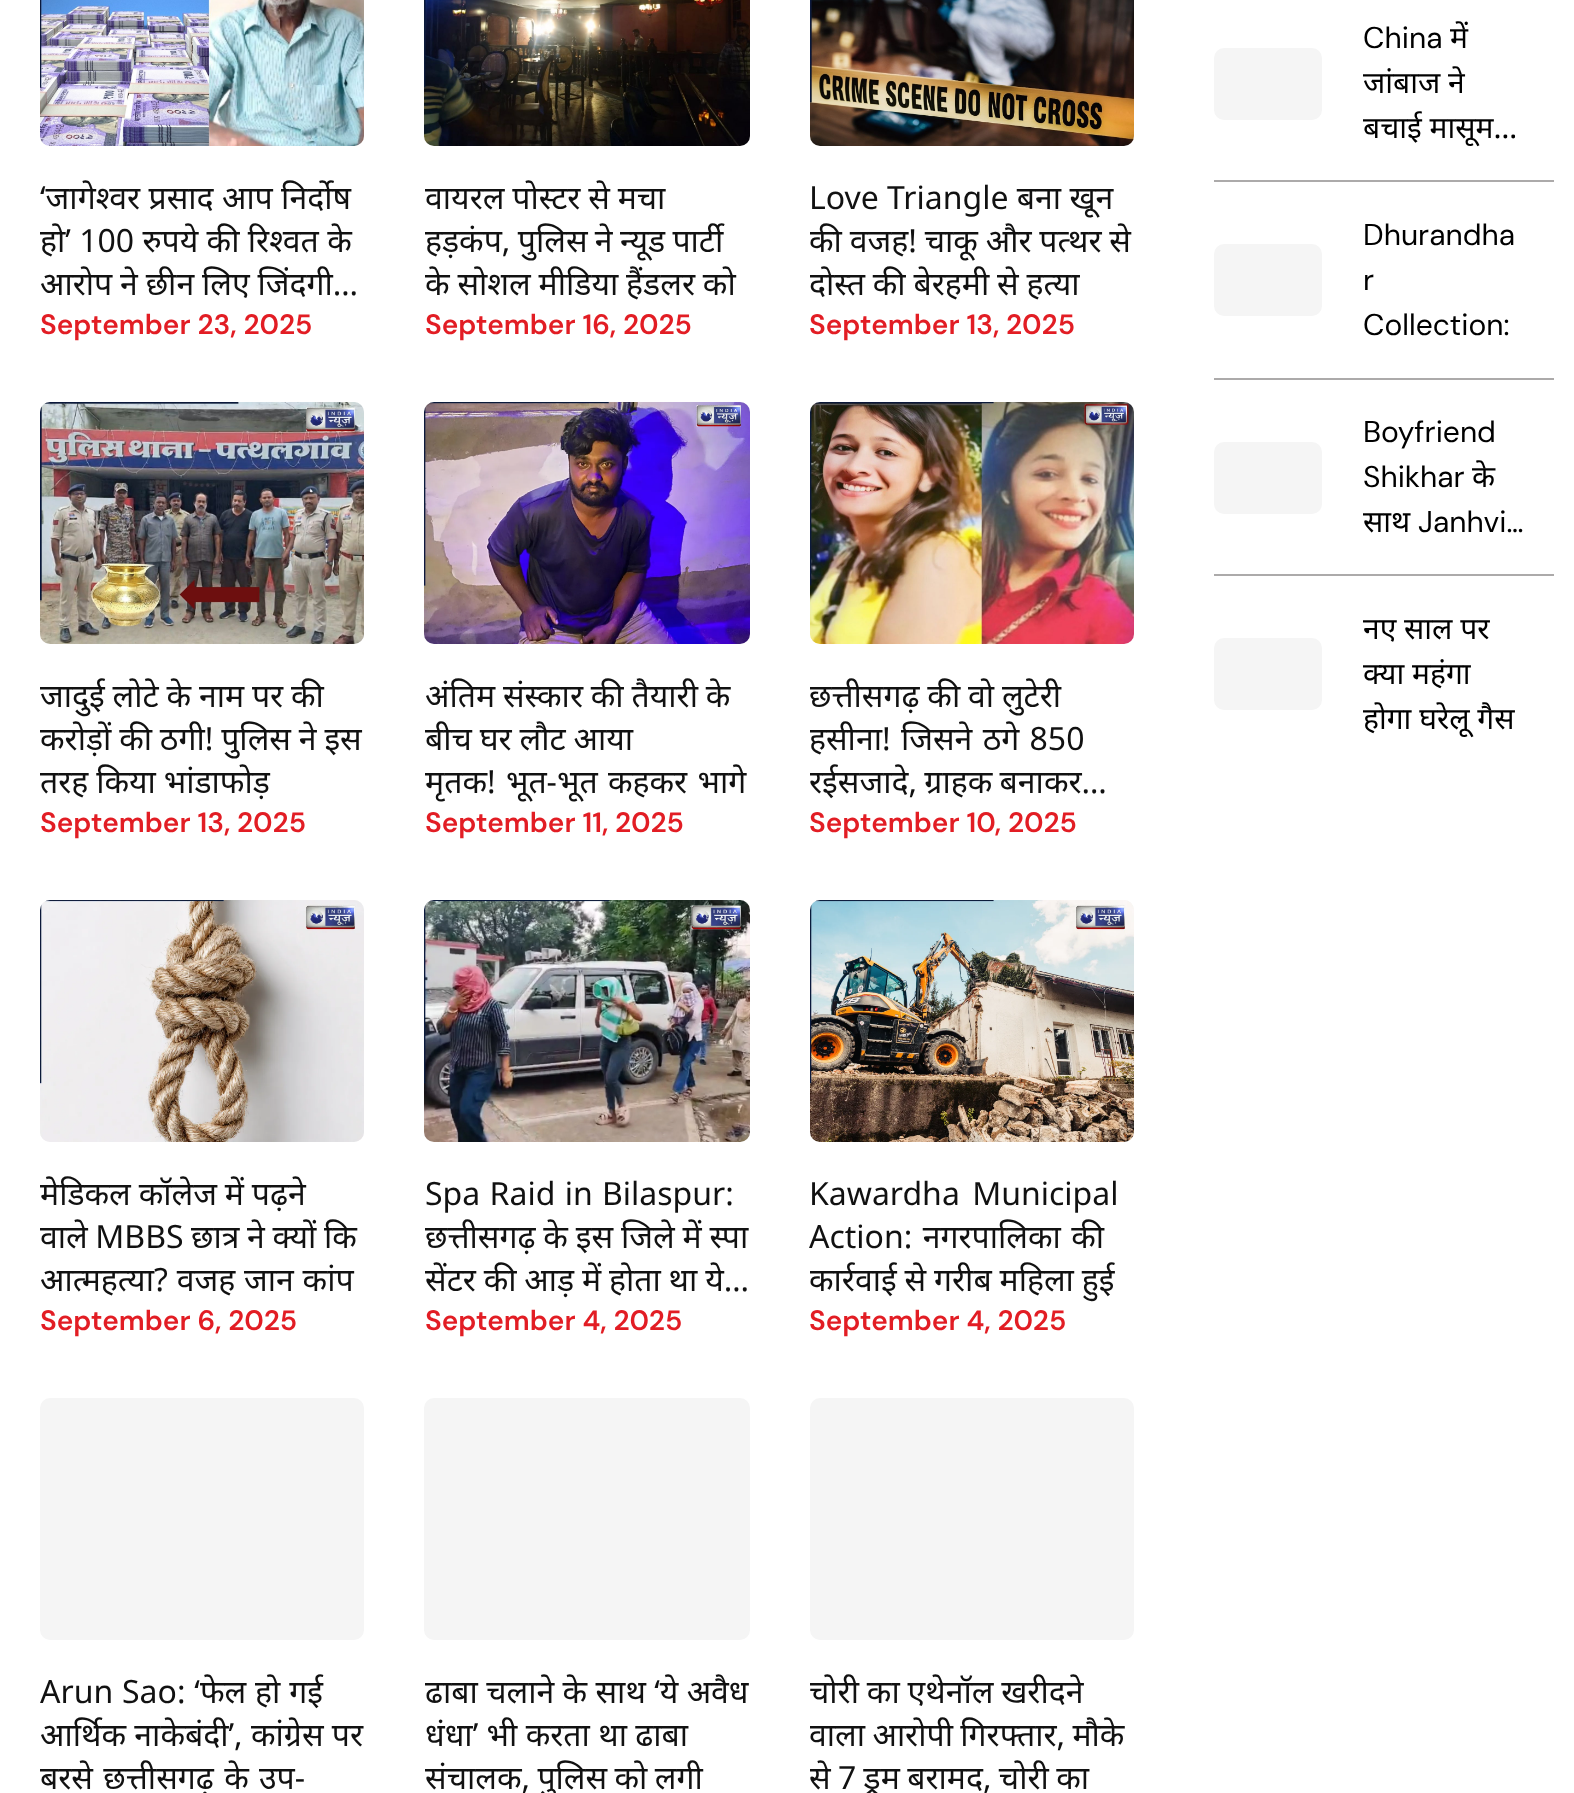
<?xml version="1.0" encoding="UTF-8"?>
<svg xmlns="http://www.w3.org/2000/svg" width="1574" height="1793">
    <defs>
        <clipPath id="clip1"><rect x="40" y="-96" width="324" height="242" rx="10"/></clipPath>
        <clipPath id="clip2"><rect x="40" y="176" width="324" height="130"/></clipPath>
        <clipPath id="clip3"><rect x="424" y="-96" width="326" height="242" rx="10"/></clipPath>
        <clipPath id="clip4"><rect x="424" y="176" width="326" height="130"/></clipPath>
        <clipPath id="clip5"><rect x="810" y="-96" width="324" height="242" rx="10"/></clipPath>
        <clipPath id="clip6"><rect x="810" y="176" width="324" height="130"/></clipPath>
        <clipPath id="clip7"><rect x="40" y="402" width="324" height="242" rx="10"/></clipPath>
        <clipPath id="clip8"><rect x="424" y="402" width="326" height="242" rx="10"/></clipPath>
        <clipPath id="clip9"><rect x="424" y="674" width="326" height="130"/></clipPath>
        <clipPath id="clip10"><rect x="810" y="402" width="324" height="242" rx="10"/></clipPath>
        <clipPath id="clip11"><rect x="810" y="674" width="324" height="130"/></clipPath>
        <clipPath id="clip12"><rect x="40" y="900" width="324" height="242" rx="10"/></clipPath>
        <clipPath id="clip13"><rect x="40" y="1172" width="324" height="130"/></clipPath>
        <clipPath id="clip14"><rect x="424" y="900" width="326" height="242" rx="10"/></clipPath>
        <clipPath id="clip15"><rect x="424" y="1172" width="326" height="130"/></clipPath>
        <clipPath id="clip16"><rect x="810" y="900" width="324" height="242" rx="10"/></clipPath>
        <clipPath id="clip17"><rect x="810" y="1172" width="324" height="130"/></clipPath>
        <clipPath id="clip18"><rect x="40" y="1398" width="324" height="242" rx="10"/></clipPath>
        <clipPath id="clip19"><rect x="424" y="1398" width="326" height="242" rx="10"/></clipPath>
        <clipPath id="clip20"><rect x="424" y="1670" width="326" height="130"/></clipPath>
        <clipPath id="clip21"><rect x="810" y="1398" width="324" height="242" rx="10"/></clipPath>
        <clipPath id="clip22"><rect x="810" y="1670" width="324" height="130"/></clipPath>
        <clipPath id="clip23"><rect x="1362" y="16" width="192" height="134"/></clipPath>
        <clipPath id="clip24"><rect x="1362" y="606" width="192" height="136"/></clipPath>
    </defs>
    <rect width="100%" height="100%" fill="#FFFFFF"/>
    <g clip-path="url(#clip1)">
        <rect x="38" y="-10" width="328" height="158" rx="10" fill="#F5F5F5"/>
    </g>
    <image x="40" y="0" width="324" height="146" href="img_01.png"/>
    <text x="40" y="209" font-family="Noto Sans" font-size="32" fill="#111111">‘जागेश्वर प्रसाद आप निर्दोष</text>
    <g clip-path="url(#clip2)">
        <text x="40" y="252" font-family="Noto Sans" font-size="32" fill="#111111">हो’ 100 रुपये की रिश्वत के</text>
    </g>
    <text x="40" y="295" word-spacing="-0.5" font-family="Noto Sans" font-size="32" fill="#111111">आरोप ने छीन लिए जिंदगी…</text>
    <text x="40" y="334" font-family="DM Sans" font-size="28" font-weight="600" fill="#E21D24">September 23, 2025</text>
    <g clip-path="url(#clip3)">
        <rect x="422" y="-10" width="330" height="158" rx="10" fill="#F5F5F5"/>
    </g>
    <image x="424" y="0" width="326" height="146" href="img_02.png"/>
    <text font-family="Noto Sans" font-size="32" fill="#111111">
        <tspan x="425" y="209" word-spacing="-0.5">वायरल पोस्टर से मचा</tspan>
        <tspan x="425" y="252" word-spacing="-1">हड़कंप, पुलिस ने न्यूड पार्टी</tspan>
    </text>
    <g clip-path="url(#clip4)">
        <text x="425" y="295" word-spacing="-0.5" font-family="Noto Sans" font-size="32" fill="#111111">के सोशल मीडिया हैंडलर को</text>
    </g>
    <text x="425" y="334" font-family="DM Sans" font-size="28" font-weight="600" fill="#E21D24">September 16, 2025</text>
    <g clip-path="url(#clip5)">
        <rect x="808" y="-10" width="328" height="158" rx="10" fill="#F5F5F5"/>
    </g>
    <image x="810" y="0" width="324" height="146" href="img_03.png"/>
    <text x="809" y="209" font-family="Noto Sans" font-size="32" fill="#111111">Love Triangle बना खून</text>
    <g clip-path="url(#clip6)">
        <text font-family="Noto Sans" font-size="32" fill="#111111">
            <tspan x="809" y="252" word-spacing="-0.5">की वजह! चाकू और पत्थर से</tspan>
            <tspan x="809" y="295" word-spacing="-0.5">दोस्त की बेरहमी से हत्या</tspan>
        </text>
    </g>
    <text x="809" y="334" font-family="DM Sans" font-size="28" font-weight="600" fill="#E21D24">September 13, 2025</text>
    <g clip-path="url(#clip7)">
        <rect x="38" y="400" width="328" height="246" rx="10" fill="#F5F5F5"/>
    </g>
    <image x="40" y="402" width="324" height="242" href="img_04.png"/>
    <text font-family="Noto Sans" font-size="32" fill="#111111">
        <tspan x="40" y="707" word-spacing="-0.5">जादुई लोटे के नाम पर की</tspan>
        <tspan x="40" y="750" word-spacing="-0.5">करोड़ों की ठगी! पुलिस ने इस</tspan>
        <tspan x="40" y="793" word-spacing="-0.5">तरह किया भांडाफोड़</tspan>
    </text>
    <text x="40" y="832" font-family="DM Sans" font-size="28" font-weight="600" fill="#E21D24">September 13, 2025</text>
    <g clip-path="url(#clip8)">
        <rect x="422" y="400" width="330" height="246" rx="10" fill="#F5F5F5"/>
    </g>
    <image x="424" y="402" width="326" height="242" href="img_05.png"/>
    <g clip-path="url(#clip9)">
        <text font-family="Noto Sans" font-size="32" fill="#111111">
            <tspan x="425" y="707" word-spacing="-0.5">अंतिम संस्कार की तैयारी के</tspan>
            <tspan x="425" y="750" word-spacing="-0.5">बीच घर लौट आया</tspan>
            <tspan x="425" y="793" word-spacing="2">मृतक! भूत-भूत कहकर भागे</tspan>
        </text>
    </g>
    <text x="425" y="832" font-family="DM Sans" font-size="28" font-weight="600" fill="#E21D24">September 11, 2025</text>
    <g clip-path="url(#clip10)">
        <rect x="808" y="400" width="328" height="246" rx="10" fill="#F5F5F5"/>
    </g>
    <image x="810" y="402" width="324" height="242" href="img_06.png"/>
    <g clip-path="url(#clip11)">
        <text font-family="Noto Sans" font-size="32" fill="#111111">
            <tspan x="809" y="707" word-spacing="-0.5">छत्तीसगढ़ की वो लुटेरी</tspan>
            <tspan x="809" y="750" word-spacing="2">हसीना! जिसने ठगे 850</tspan>
            <tspan x="809" y="793" word-spacing="-1">रईसजादे, ग्राहक बनाकर…</tspan>
        </text>
    </g>
    <text x="809" y="832" font-family="DM Sans" font-size="28" font-weight="600" fill="#E21D24">September 10, 2025</text>
    <g clip-path="url(#clip12)">
        <rect x="38" y="898" width="328" height="246" rx="10" fill="#F5F5F5"/>
    </g>
    <image x="40" y="900" width="324" height="242" href="img_07.png"/>
    <g clip-path="url(#clip13)">
        <text x="40" y="1205" word-spacing="-0.5" font-family="Noto Sans" font-size="32" fill="#111111">मेडिकल कॉलेज में पढ़ने</text>
    </g>
    <text font-family="Noto Sans" font-size="32" fill="#111111">
        <tspan x="40" y="1248" word-spacing="-0.75">वाले MBBS छात्र ने क्यों कि</tspan>
        <tspan x="40" y="1291" word-spacing="0.5">आत्महत्या? वजह जान कांप</tspan>
    </text>
    <text x="40" y="1330" font-family="DM Sans" font-size="28" font-weight="600" fill="#E21D24">September 6, 2025</text>
    <g clip-path="url(#clip14)">
        <rect x="422" y="898" width="330" height="246" rx="10" fill="#F5F5F5"/>
    </g>
    <image x="424" y="900" width="326" height="242" href="img_08.png"/>
    <text font-family="Noto Sans" font-size="32" fill="#111111">
        <tspan x="425" y="1205" word-spacing="1">Spa Raid in Bilaspur:</tspan>
        <tspan x="425" y="1248" word-spacing="-0.5">छत्तीसगढ़ के इस जिले में स्पा</tspan>
    </text>
    <g clip-path="url(#clip15)">
        <text x="425" y="1291" word-spacing="-0.5" font-family="Noto Sans" font-size="32" fill="#111111">सेंटर की आड़ में होता था ये…</text>
    </g>
    <text x="425" y="1330" font-family="DM Sans" font-size="28" font-weight="600" fill="#E21D24">September 4, 2025</text>
    <g clip-path="url(#clip16)">
        <rect x="808" y="898" width="328" height="246" rx="10" fill="#F5F5F5"/>
    </g>
    <image x="810" y="900" width="324" height="242" href="img_09.png"/>
    <text font-family="Noto Sans" font-size="32" fill="#111111">
        <tspan x="809" y="1205" word-spacing="4">Kawardha Municipal</tspan>
        <tspan x="809" y="1248" word-spacing="2">Action: नगरपालिका की</tspan>
    </text>
    <g clip-path="url(#clip17)">
        <text x="809" y="1291" word-spacing="-0.5" font-family="Noto Sans" font-size="32" fill="#111111">कार्रवाई से गरीब महिला हुई</text>
    </g>
    <text x="809" y="1330" font-family="DM Sans" font-size="28" font-weight="600" fill="#E21D24">September 4, 2025</text>
    <g clip-path="url(#clip18)">
        <rect x="38" y="1396" width="328" height="246" rx="10" fill="#F5F5F5"/>
    </g>
    <text font-family="Noto Sans" font-size="32" fill="#111111">
        <tspan x="40" y="1703" word-spacing="0.5">Arun Sao: ‘फेल हो गई</tspan>
        <tspan x="40" y="1746">आर्थिक नाकेबंदी’, कांग्रेस पर</tspan>
        <tspan x="40" y="1789" word-spacing="2">बरसे छत्तीसगढ़ के उप-</tspan>
    </text>
    <g clip-path="url(#clip19)">
        <rect x="422" y="1396" width="330" height="246" rx="10" fill="#F5F5F5"/>
    </g>
    <text x="425" y="1703" font-family="Noto Sans" font-size="32" fill="#111111">ढाबा चलाने के साथ ‘ये अवैध</text>
    <g clip-path="url(#clip20)">
        <text font-family="Noto Sans" font-size="32" fill="#111111">
            <tspan x="425" y="1746">धंधा’ भी करता था ढाबा</tspan>
            <tspan x="425" y="1789" word-spacing="-1">संचालक, पुलिस को लगी</tspan>
        </text>
    </g>
    <g clip-path="url(#clip21)">
        <rect x="808" y="1396" width="328" height="246" rx="10" fill="#F5F5F5"/>
    </g>
    <g clip-path="url(#clip22)">
        <text font-family="Noto Sans" font-size="32" fill="#111111">
            <tspan x="809" y="1703" word-spacing="-0.5">चोरी का एथेनॉल खरीदने</tspan>
            <tspan x="809" y="1746" word-spacing="-1">वाला आरोपी गिरफ्तार, मौके</tspan>
            <tspan x="809" y="1789" word-spacing="-1">से 7 ड्रम बरामद, चोरी का</tspan>
        </text>
    </g>
    <rect x="1214" y="180" width="340" height="2" fill="#ACAAAA"/>
    <rect x="1214" y="48" width="108" height="72" rx="10" fill="#F5F5F5"/>
    <text x="1363" y="48" font-family="DM Sans" font-size="30" fill="#000000">China</text>
    <text x="1450" y="48" font-family="Noto Sans" font-size="30" fill="#000000">में</text>
    <g clip-path="url(#clip23)">
        <text x="1363" y="93" font-family="Noto Sans" font-size="30" fill="#000000">जांबाज ने</text>
    </g>
    <text x="1363" y="138" font-family="Noto Sans" font-size="30" fill="#000000">बचाई मासूम…</text>
    <rect x="1214" y="378" width="340" height="2" fill="#ACAAAA"/>
    <rect x="1214" y="244" width="108" height="72" rx="10" fill="#F5F5F5"/>
    <text font-family="DM Sans" font-size="30" fill="#000000">
        <tspan x="1363" y="245">Dhurandha</tspan>
        <tspan x="1363" y="290">r</tspan>
        <tspan x="1363" y="335">Collection:</tspan>
    </text>
    <rect x="1214" y="574" width="340" height="2" fill="#ACAAAA"/>
    <rect x="1214" y="442" width="108" height="72" rx="10" fill="#F5F5F5"/>
    <text font-family="DM Sans" font-size="30" fill="#000000">
        <tspan x="1363" y="442">Boyfriend</tspan>
        <tspan x="1363" y="487">Shikhar</tspan>
    </text>
    <text x="1472" y="487" font-family="Noto Sans" font-size="30" fill="#000000">के</text>
    <text x="1363" y="532" font-family="Noto Sans" font-size="30" fill="#000000">साथ</text>
    <text x="1418" y="532" font-family="DM Sans" font-size="30" fill="#000000">Janhvi…</text>
    <rect x="1214" y="638" width="108" height="72" rx="10" fill="#F5F5F5"/>
    <text font-family="Noto Sans" font-size="30" fill="#000000">
        <tspan x="1363" y="639">नए साल पर</tspan>
        <tspan x="1363" y="684">क्या महंगा</tspan>
    </text>
    <g clip-path="url(#clip24)">
        <text x="1363" y="729" font-family="Noto Sans" font-size="30" fill="#000000">होगा घरेलू गैस</text>
    </g>
</svg>
